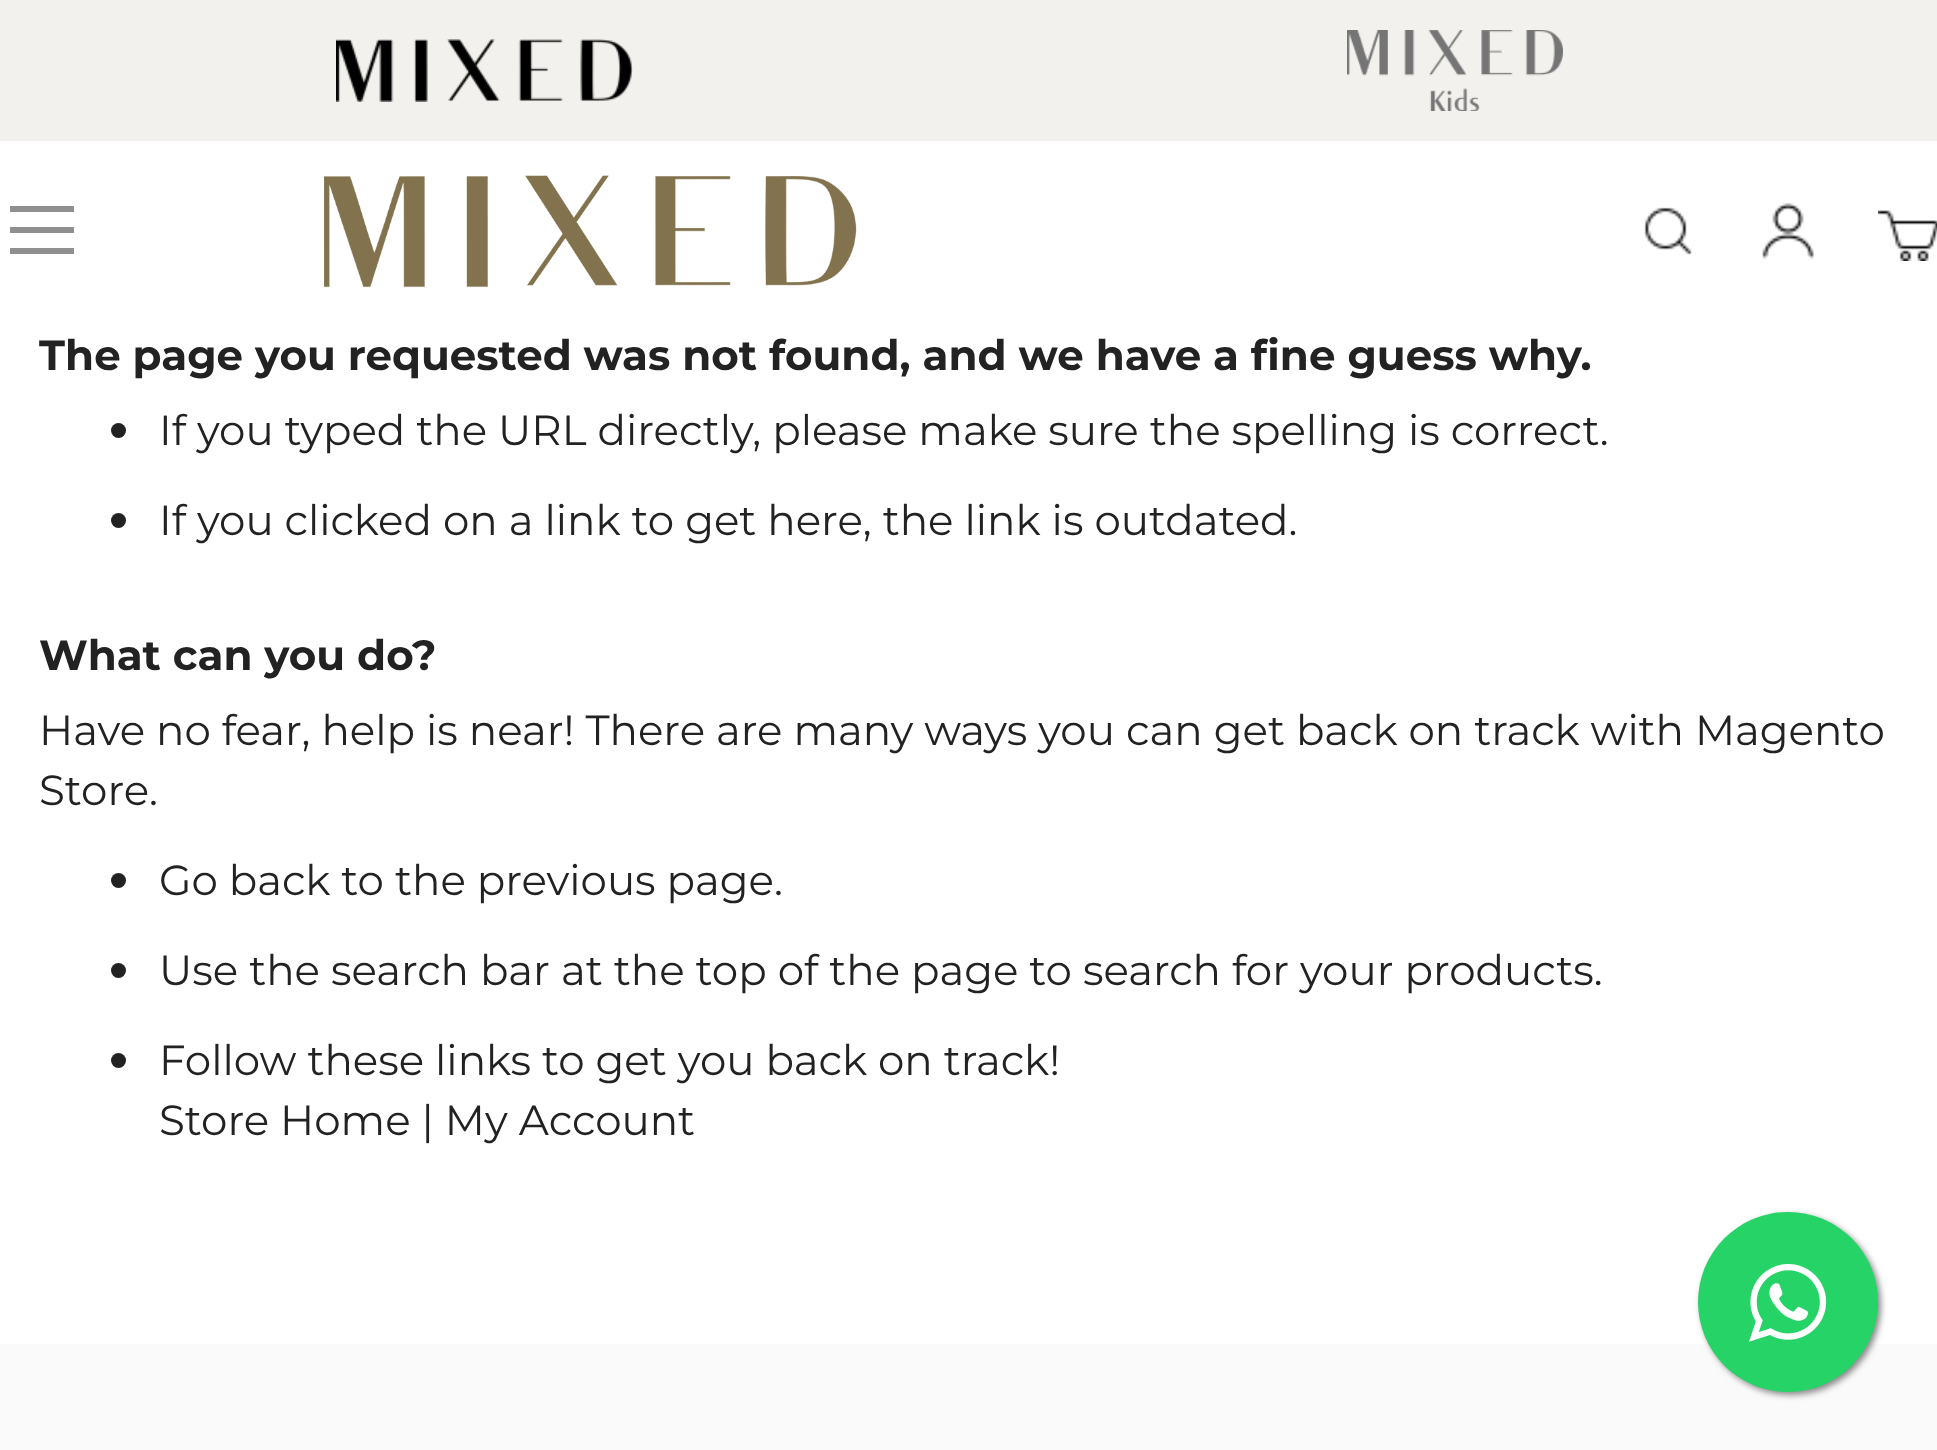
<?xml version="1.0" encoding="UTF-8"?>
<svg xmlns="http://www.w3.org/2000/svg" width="1937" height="1450">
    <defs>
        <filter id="blur1" x="-50%" y="-200%" width="200%" height="500%"><feGaussianBlur stdDeviation="3"/></filter>
    </defs>
    <rect width="100%" height="100%" fill="#FFFFFF"/>
    <rect x="0" y="0" width="1937" height="141" fill="#F2F1ED"/>
    <image x="336" y="39" width="297" height="63" href="img_01.png"/>
    <image x="1347" y="30" width="216" height="81" href="img_02.png"/>
    <path d="M 10 206 V 212 H 74 V 206 Z M 10 233 H 74 V 227 H 10 Z M 10 254 H 74 V 248 H 10 Z" fill="#8F8F8F"/>
    <image x="324" y="175" width="533" height="113" href="img_03.png"/>
    <image x="1644" y="207" width="48" height="48" href="img_04.png"/>
    <image x="1762" y="203" width="52" height="57" href="img_05.png"/>
    <image x="1878" y="210" width="59" height="51" href="img_06.png"/>
    <text x="39" y="370" font-family="Montserrat" font-size="42" font-weight="700" fill="#222222">The page you requested was not found, and we have a fine guess why.</text>
    <circle cx="118.5" cy="430.5" r="7.5" fill="#222222"/>
    <text x="159" y="445" font-family="Montserrat" font-size="42" fill="#222222">If you typed the URL directly, please make sure the spelling is correct.</text>
    <circle cx="118.5" cy="520.5" r="7.5" fill="#222222"/>
    <text x="159" y="535" font-family="Montserrat" font-size="42" fill="#222222">If you clicked on a link to get here, the link is outdated.</text>
    <text x="39" y="670" font-family="Montserrat" font-size="42" font-weight="700" fill="#222222">What can you do?</text>
    <text font-family="Montserrat" font-size="42" fill="#222222">
        <tspan x="39" y="745">Have no fear, help is near! There are many ways you can get back on track with Magento</tspan>
        <tspan x="39" y="805">Store.</tspan>
    </text>
    <circle cx="118.5" cy="880.5" r="7.5" fill="#222222"/>
    <text x="159" y="895" font-family="Montserrat" font-size="42" fill="#222222">Go back to the previous page.</text>
    <circle cx="118.5" cy="970.5" r="7.5" fill="#222222"/>
    <text x="159" y="985" font-family="Montserrat" font-size="42" fill="#222222">Use the search bar at the top of the page to search for your products.</text>
    <circle cx="118.5" cy="1060.5" r="7.5" fill="#222222"/>
    <text font-family="Montserrat" font-size="42" fill="#222222">
        <tspan x="159" y="1075">Follow these links to get you back on track!</tspan>
        <tspan x="159" y="1135">Store Home | My Account</tspan>
    </text>
    <rect x="0" y="1344" width="1937" height="106" fill="#FAFAFA"/>
    <rect x="1701" y="1215" width="180" height="180" rx="90" fill="#888888" filter="url(#blur1)"/>
    <circle cx="1788" cy="1302" r="90" fill="#25D366"/>
    <image x="1749" y="1264" width="78" height="78" href="img_07.png"/>
</svg>
